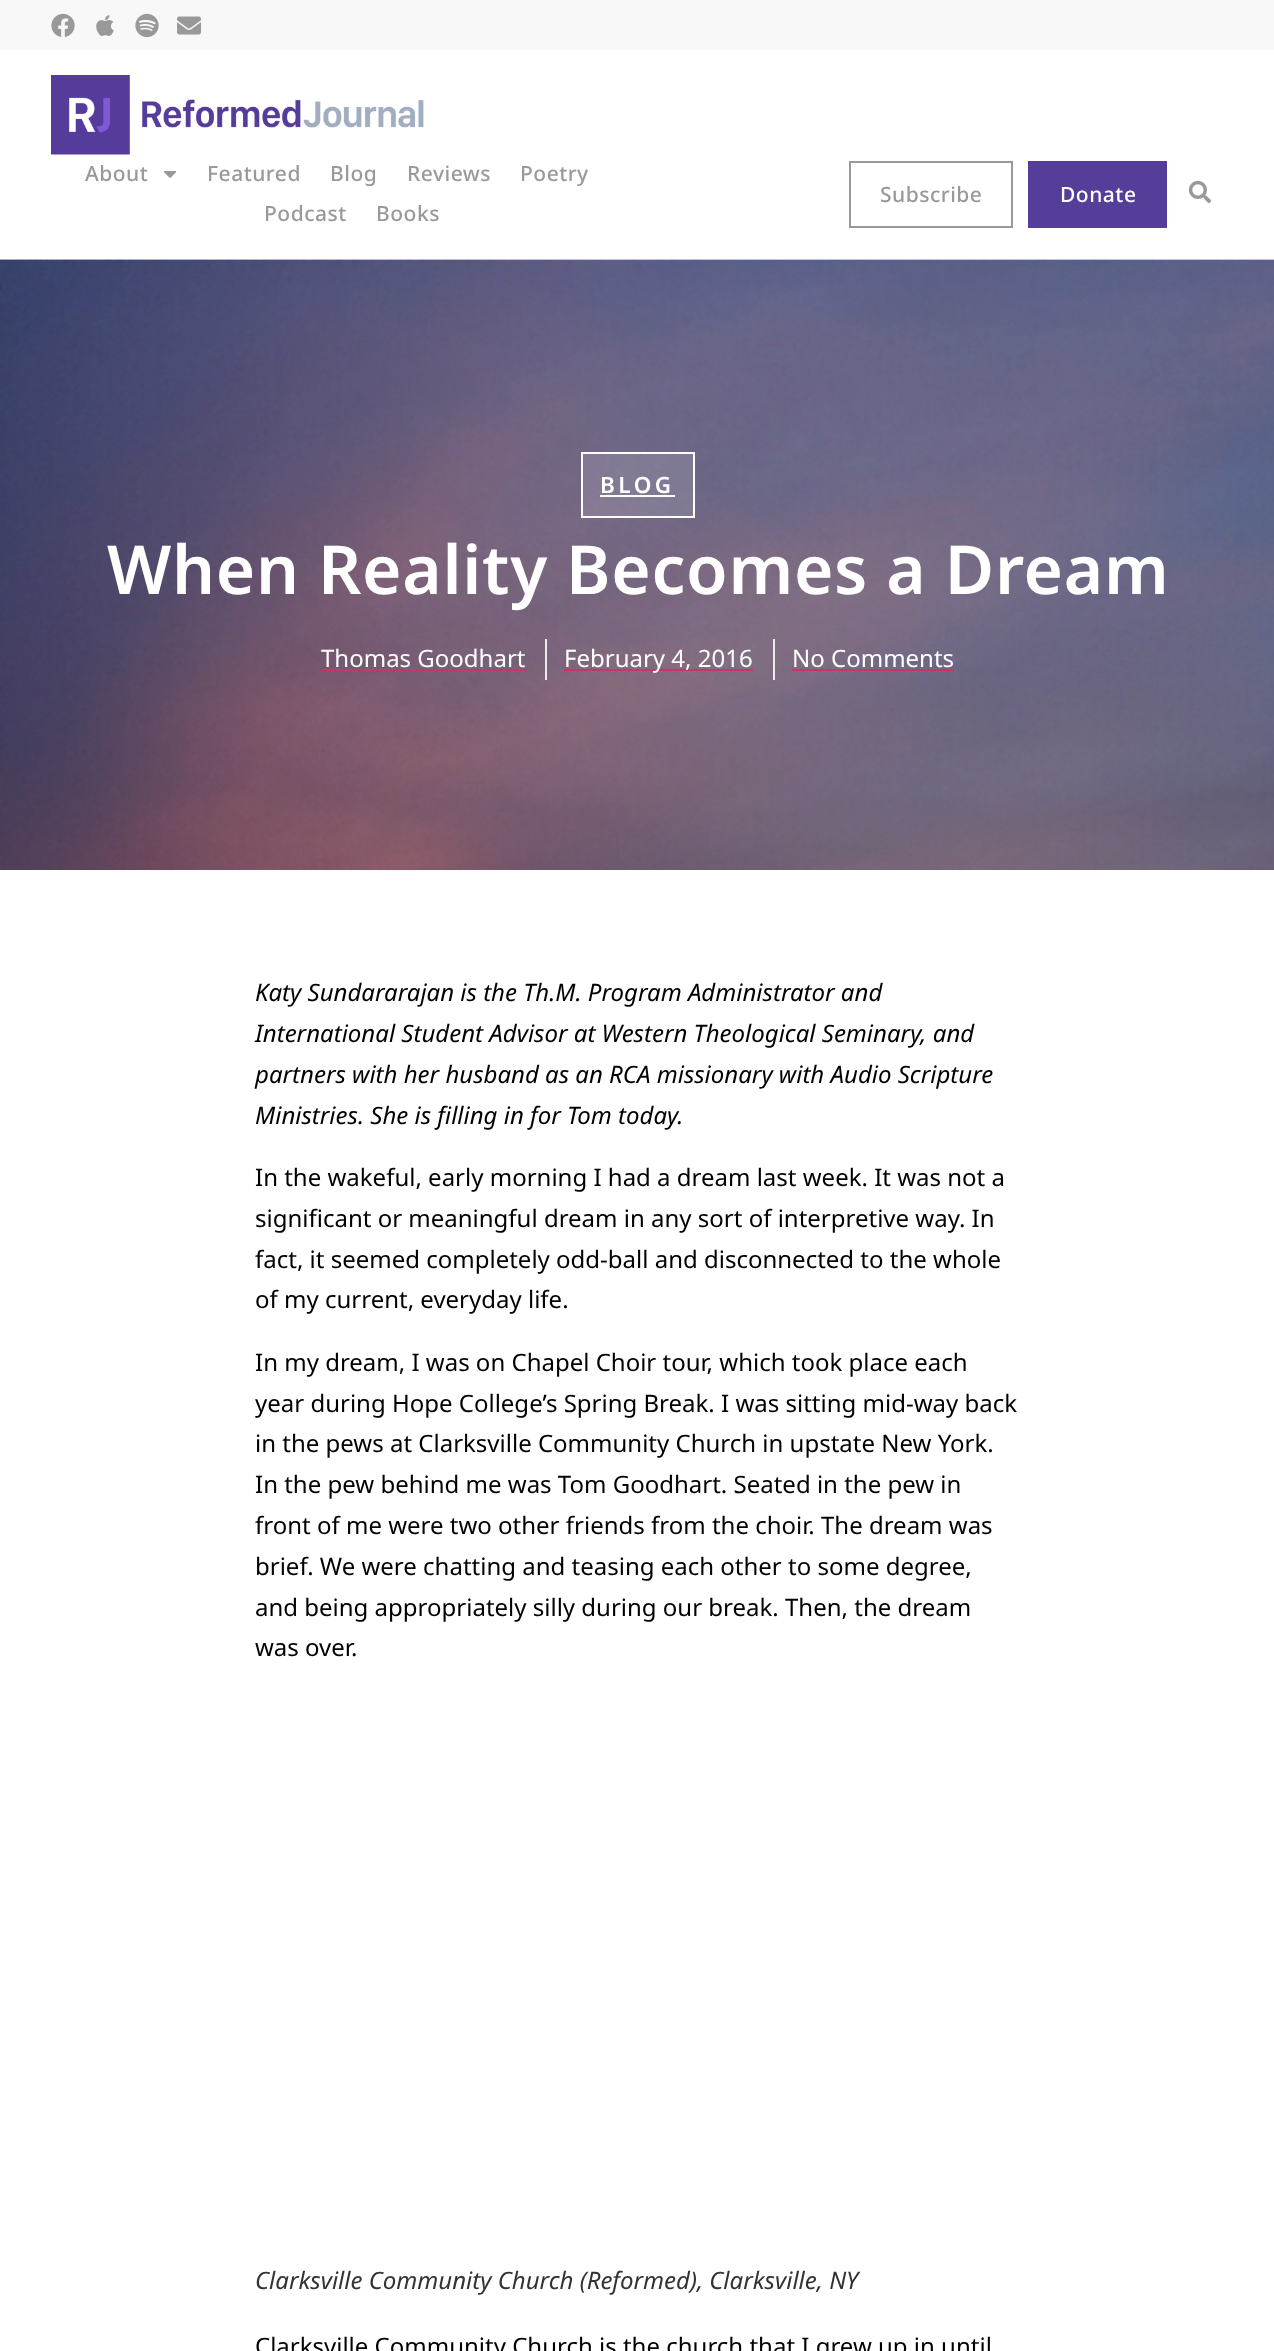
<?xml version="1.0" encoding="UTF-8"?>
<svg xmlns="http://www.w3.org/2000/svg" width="1274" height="2351">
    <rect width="100%" height="100%" fill="#FFFFFF"/>
    <rect x="0" y="0" width="1274" height="50" fill="#F8F8F8"/>
    <image x="51" y="13" width="24" height="24" href="img_01.png"/>
    <image x="96" y="15" width="18" height="21" href="img_02.png"/>
    <image x="135" y="13" width="24" height="25" href="img_03.png"/>
    <image x="177" y="16" width="24" height="19" href="img_04.png"/>
    <image x="51" y="75" width="373" height="80" href="img_05.png"/>
    <text x="85" y="181" font-family="Noto Sans" font-size="21" font-weight="500" letter-spacing="0.5" fill="#999999">About</text>
    <image x="164" y="171" width="13" height="7" href="img_06.png"/>
    <text x="207" y="181" font-family="Noto Sans" font-size="21" font-weight="500" letter-spacing="0.5" fill="#999999">Featured</text>
    <text x="330" y="181" font-family="Noto Sans" font-size="21" font-weight="500" letter-spacing="0.5" fill="#999999">Blog</text>
    <text x="407" y="181" font-family="Noto Sans" font-size="21" font-weight="500" letter-spacing="0.5" fill="#999999">Reviews</text>
    <text x="520" y="181" font-family="Noto Sans" font-size="21" font-weight="500" letter-spacing="0.5" fill="#999999">Poetry</text>
    <text x="264" y="221" font-family="Noto Sans" font-size="21" font-weight="500" letter-spacing="0.5" fill="#999999">Podcast</text>
    <text x="376" y="221" font-family="Noto Sans" font-size="21" font-weight="500" letter-spacing="0.5" fill="#999999">Books</text>
    <rect x="850" y="162" width="162" height="65" fill="none" stroke="#999999" stroke-width="2"/>
    <text x="880" y="202" font-family="Noto Sans" font-size="21" font-weight="500" letter-spacing="0.5" fill="#999999">Subscribe</text>
    <rect x="1028" y="161" width="139" height="67" fill="#553D9A"/>
    <text x="1060" y="202" font-family="Noto Sans" font-size="21" font-weight="500" letter-spacing="0.5" fill="#FFFFFF">Donate</text>
    <image x="1188" y="180" width="24" height="24" href="img_07.png"/>
    <image x="0" y="259" width="1274" height="611" href="img_08.png"/>
    <rect x="582" y="453" width="112" height="64" fill="#FFFFFF" fill-opacity="0.13" stroke="#FFFFFF" stroke-width="2"/>
    <text x="600" y="493" font-family="Noto Sans" font-size="22.5" font-weight="600" letter-spacing="3.5" fill="#FFFFFF">BLOG</text>
    <rect x="600" y="495" width="75" height="2" fill="#FFFFFF"/>
    <text x="107" y="594" font-family="Noto Sans" font-size="67.5" font-weight="600" letter-spacing="0.7" fill="#FFFFFF">When Reality Becomes a Dream</text>
    <text x="321" y="667" font-family="Noto Sans" font-size="24" fill="#FFFFFF">Thomas Goodhart</text>
    <rect x="321" y="669" width="204" height="2" fill="#CC3366"/>
    <rect x="545" y="639" width="2" height="41" fill="#ECEBE9"/>
    <rect x="564" y="669" width="189" height="2" fill="#CC3366"/>
    <text x="564" y="667" font-family="Noto Sans" font-size="24" fill="#FFFFFF">February 4, 2016</text>
    <rect x="773" y="639" width="2" height="41" fill="#ECEBE9"/>
    <text x="792" y="667" font-family="Noto Sans" font-size="24" fill="#FFFFFF">No Comments</text>
    <rect x="792" y="669" width="162" height="2" fill="#CC3366"/>
    <text font-family="Noto Sans" font-size="24" font-style="italic" fill="#000000">
        <tspan x="255" y="1001">Katy Sundararajan is the Th.M. Program Administrator and</tspan>
        <tspan x="255" y="1042">International Student Advisor at Western Theological Seminary, and</tspan>
        <tspan x="255" y="1083">partners with her husband as an RCA missionary with Audio Scripture</tspan>
        <tspan x="255" y="1124">Ministries. She is filling in for Tom today.</tspan>
    </text>
    <text font-family="Noto Sans" font-size="24" fill="#000000">
        <tspan x="255" y="1186">In the wakeful, early morning I had a dream last week. It was not a</tspan>
        <tspan x="255" y="1227">significant or meaningful dream in any sort of interpretive way. In</tspan>
        <tspan x="255" y="1268">fact, it seemed completely odd-ball and disconnected to the whole</tspan>
        <tspan x="255" y="1308">of my current, everyday life.</tspan>
    </text>
    <text font-family="Noto Sans" font-size="24" fill="#000000">
        <tspan x="255" y="1371">In my dream, I was on Chapel Choir tour, which took place each</tspan>
        <tspan x="255" y="1412">year during Hope College’s Spring Break. I was sitting mid-way back</tspan>
        <tspan x="255" y="1452">in the pews at Clarksville Community Church in upstate New York.</tspan>
        <tspan x="255" y="1493">In the pew behind me was Tom Goodhart. Seated in the pew in</tspan>
        <tspan x="255" y="1534">front of me were two other friends from the choir. The dream was</tspan>
        <tspan x="255" y="1575">brief. We were chatting and teasing each other to some degree,</tspan>
        <tspan x="255" y="1616">and being appropriately silly during our break. Then, the dream</tspan>
        <tspan x="255" y="1656">was over.</tspan>
    </text>
    <text x="255" y="2289" font-family="Noto Sans" font-size="24" font-style="italic" fill="#333333">Clarksville Community Church (Reformed), Clarksville, NY</text>
    <text x="255" y="2355" font-family="Noto Sans" font-size="24" fill="#000000">Clarksville Community Church is the church that I grew up in until</text>
</svg>
